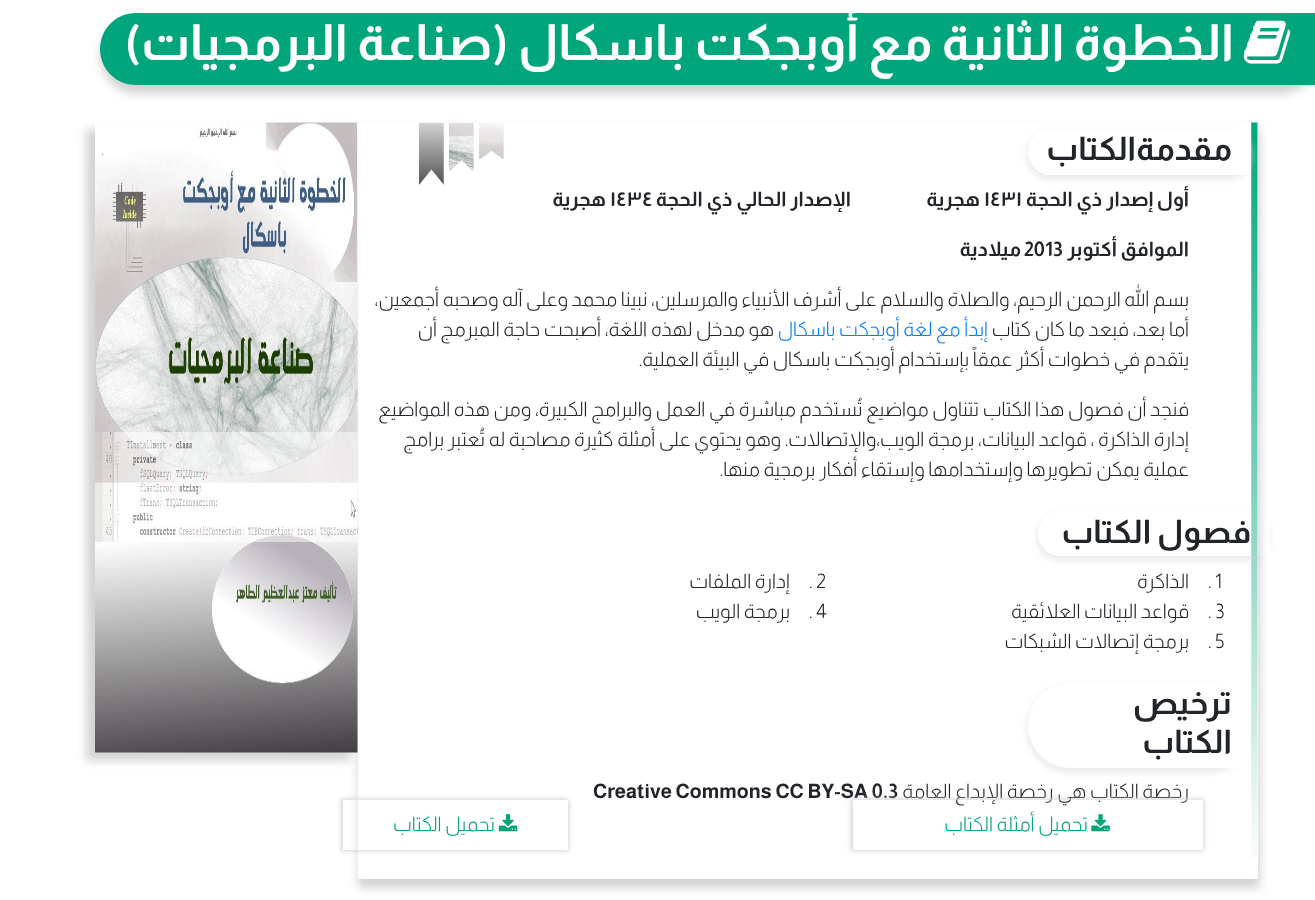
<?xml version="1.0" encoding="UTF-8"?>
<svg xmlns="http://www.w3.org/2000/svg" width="1315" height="900">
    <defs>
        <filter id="blur1" x="-50%" y="-200%" width="200%" height="500%"><feGaussianBlur stdDeviation="5"/></filter>
        <clipPath id="clip1"><path d="M 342 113 H 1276 V 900 H 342 Z M 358 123 H 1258 V 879 H 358 Z" clip-rule="evenodd"/></clipPath>
        <clipPath id="clip2"><path d="M 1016 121 H 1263 V 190 H 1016 Z M 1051 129 H 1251 V 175 H 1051 C 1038.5 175 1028 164.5 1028 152 C 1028 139.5 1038.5 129 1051 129 Z" clip-rule="evenodd"/></clipPath>
        <filter id="blur2" x="-50%" y="-200%" width="200%" height="500%"><feGaussianBlur stdDeviation="3"/></filter>
        <clipPath id="clip3"><path d="M 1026 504 H 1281 V 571 H 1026 Z M 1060.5 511 H 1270 V 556 H 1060.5 C 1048 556 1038 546 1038 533.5 C 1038 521 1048 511 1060.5 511 Z" clip-rule="evenodd"/></clipPath>
        <clipPath id="clip4"><path d="M 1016 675 H 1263 V 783 H 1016 Z M 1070.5 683 H 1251 V 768 H 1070.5 C 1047 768 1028 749 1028 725.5 C 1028 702 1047 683 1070.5 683 Z" clip-rule="evenodd"/></clipPath>
        <clipPath id="clip5"><path d="M 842 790 H 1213 V 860 H 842 Z M 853 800 H 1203 V 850 H 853 Z" clip-rule="evenodd"/></clipPath>
        <filter id="blur3" x="-50%" y="-200%" width="200%" height="500%"><feGaussianBlur stdDeviation="2.5"/></filter>
        <clipPath id="clip6"><path d="M 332 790 H 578 V 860 H 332 Z M 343 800 H 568 V 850 H 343 Z" clip-rule="evenodd"/></clipPath>
    </defs>
    <rect width="100%" height="100%" fill="#FFFFFF"/>
    <rect x="100" y="19" width="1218" height="75" rx="37.5" fill="#D3D3D3" filter="url(#blur1)"/>
    <path d="M 136 13 H 1315 V 85 H 136 C 116 85 100 69 100 49 C 100 29 116 13 136 13 Z" fill="#01A57C"/>
    <image x="1243" y="20" width="48" height="44" href="img_01.png"/>
    <text x="1234" y="60" font-family="Almarai" font-size="50" font-weight="700" direction="rtl" fill="#FFFFFF">الخطوة الثانية مع أوبجكت باسكال (صناعة البرمجيات)</text>
    <g clip-path="url(#clip1)">
        <rect x="358" y="129" width="902" height="759" fill="#D3D3D3" filter="url(#blur1)"/>
    </g>
    <image x="1251" y="122" width="7" height="736" href="img_02.png"/>
    <g clip-path="url(#clip2)">
        <rect x="1026" y="131" width="227" height="49" rx="24.5" fill="#D3D3D3" fill-opacity="0.45" filter="url(#blur2)"/>
    </g>
    <text x="1232" y="160" font-family="Almarai" font-size="32.5" font-weight="700" direction="rtl" fill="#212529">مقدمةالكتاب</text>
    <image x="479" y="123" width="25" height="37" href="img_03.png"/>
    <image x="449" y="123" width="25" height="49" href="img_04.png"/>
    <image x="419" y="122" width="25" height="63" href="img_05.png"/>
    <text x="1189" y="206" font-family="Almarai" font-size="20" font-weight="700" direction="rtl" fill="#212529">أول إصدار ذي الحجة</text>
    <text x="984" y="206" font-family="Almarai" font-size="20" font-weight="700" fill="#212529">١٤٣١</text>
    <text x="980" y="206" font-family="Almarai" font-size="20" font-weight="700" direction="rtl" fill="#212529">هجرية</text>
    <text x="851" y="206" font-family="Almarai" font-size="20" font-weight="700" direction="rtl" fill="#212529">اﻹصدار الحالي ذي الحجة</text>
    <text x="610" y="206" font-family="Almarai" font-size="20" font-weight="700" fill="#212529">١٤٣٤</text>
    <text x="606" y="206" font-family="Almarai" font-size="20" font-weight="700" direction="rtl" fill="#212529">هجرية</text>
    <text x="1189" y="256" font-family="Almarai" font-size="20" font-weight="700" direction="rtl" fill="#212529">الموافق أكتوبر</text>
    <text x="1024" y="256" font-family="Almarai" font-size="20" font-weight="700" fill="#212529">2013</text>
    <text x="1021" y="256" font-family="Almarai" font-size="20" font-weight="700" direction="rtl" fill="#212529">ميلادية</text>
    <text x="1189" y="306" font-family="Almarai" font-size="20" font-weight="300" direction="rtl" fill="#212529">بسم الله الرحمن الرحيم، والصلاة والسلام على أشرف اﻷنبياء والمرسلين، نبينا محمد وعلى آله وصحبه</text>
    <text x="439" y="306" font-family="Almarai" font-size="20" font-weight="300" direction="rtl" fill="#212529">أجمعين،</text>
    <text x="1189" y="336" font-family="Almarai" font-size="20" font-weight="300" direction="rtl" fill="#212529">أما</text>
    <text x="1165" y="336" font-family="Almarai" font-size="20" font-weight="300" direction="rtl" fill="#212529">بعد، فبعد ما كان كتاب</text>
    <text x="988" y="336" font-family="Almarai" font-size="20" font-weight="300" direction="rtl" fill="#007BFF">إبدأ مع لغة أوبجكت باسكال</text>
    <text x="774" y="336" font-family="Almarai" font-size="20" font-weight="300" direction="rtl" fill="#212529">هو مدخل لهذه</text>
    <text x="647" y="336" font-family="Almarai" font-size="20" font-weight="300" direction="rtl" fill="#212529">اللغة، أصبحت حاجة المبرمج أن</text>
    <text x="1189" y="366" font-family="Almarai" font-size="20" font-weight="300" direction="rtl" fill="#212529">يتقدم في خطوات أكثر عمقاً بإستخدام أوبجكت باسكال في البيئة العملية.</text>
    <text font-family="Almarai" font-size="20" font-weight="300" direction="rtl" fill="#212529">
        <tspan x="1189" y="416">فنجد أن فصول هذا الكتاب تتناول مواضيع تُستخدم مباشرة في العمل والبرامج الكبيرة، ومن هذه المواضيع</tspan>
        <tspan x="1189" y="446">إدارة</tspan>
    </text>
    <text x="1150" y="446" font-family="Almarai" font-size="20" font-weight="300" direction="rtl" fill="#212529">الذاكرة ، قواعد البيانات، برمجة الويب،واﻹتصالات. وهو يحتوي على أمثلة كثيرة مصاحبة</text>
    <text x="505" y="446" font-family="Almarai" font-size="20" font-weight="300" direction="rtl" fill="#212529">له تُعتبر</text>
    <text x="444" y="446" font-family="Almarai" font-size="20" font-weight="300" direction="rtl" fill="#212529">برامج</text>
    <text x="1189" y="476" font-family="Almarai" font-size="20" font-weight="300" direction="rtl" fill="#212529">عملية يمكن تطويرها وإستخدامها وإستقاء أفكار برمجية منها.</text>
    <g clip-path="url(#clip3)">
        <rect x="1036" y="514" width="235" height="47" rx="23.5" fill="#D3D3D3" fill-opacity="0.45" filter="url(#blur2)"/>
    </g>
    <text x="1251" y="543" font-family="Almarai" font-size="32.5" font-weight="700" direction="rtl" fill="#212529">فصول الكتاب</text>
    <text x="1208" y="588" font-family="Almarai" font-size="20" font-weight="300" fill="#212529">. 1</text>
    <text x="1189" y="588" font-family="Almarai" font-size="20" font-weight="300" direction="rtl" fill="#212529">الذاكرة</text>
    <text x="809" y="588" font-family="Almarai" font-size="20" font-weight="300" fill="#212529">. 2</text>
    <text x="790" y="588" font-family="Almarai" font-size="20" font-weight="300" direction="rtl" fill="#212529">إدارة الملفات</text>
    <text x="1208" y="618" font-family="Almarai" font-size="20" font-weight="300" fill="#212529">. 3</text>
    <text x="1189" y="618" font-family="Almarai" font-size="20" font-weight="300" direction="rtl" fill="#212529">قواعد البيانات العلائقية</text>
    <text x="809" y="618" font-family="Almarai" font-size="20" font-weight="300" fill="#212529">. 4</text>
    <text x="790" y="618" font-family="Almarai" font-size="20" font-weight="300" direction="rtl" fill="#212529">برمجة الويب</text>
    <text x="1208" y="648" font-family="Almarai" font-size="20" font-weight="300" fill="#212529">. 5</text>
    <text x="1189" y="648" font-family="Almarai" font-size="20" font-weight="300" direction="rtl" fill="#212529">برمجة إتصالات الشبكات</text>
    <g clip-path="url(#clip4)">
        <rect x="1026" y="685" width="227" height="88" rx="44" fill="#D3D3D3" fill-opacity="0.45" filter="url(#blur2)"/>
    </g>
    <text font-family="Almarai" font-size="32.5" font-weight="700" direction="rtl" fill="#212529">
        <tspan x="1232" y="714">ترخيص</tspan>
        <tspan x="1232" y="753">الكتاب</tspan>
    </text>
    <text x="1189" y="798" font-family="Almarai" font-size="20" font-weight="300" direction="rtl" fill="#212529">رخصة الكتاب هي رخصة الإبداع العامة</text>
    <text x="593" y="798" font-family="Almarai" font-size="20" font-weight="700" fill="#212529">Creative Commons CC BY-SA 0.3</text>
    <image x="1091" y="814" width="19" height="18" href="img_06.png"/>
    <g clip-path="url(#clip5)">
        <rect x="851" y="799" width="353" height="52" fill="#D3D3D3" filter="url(#blur3)"/>
    </g>
    <text x="1088" y="831" font-family="Almarai" font-size="20" font-weight="300" direction="rtl" fill="#01A57C">تحميل أمثلة الكتاب</text>
    <image x="498" y="814" width="20" height="18" href="img_07.png"/>
    <g clip-path="url(#clip6)">
        <rect x="341" y="799" width="228" height="52" fill="#D3D3D3" filter="url(#blur3)"/>
    </g>
    <text x="495" y="831" font-family="Almarai" font-size="20" font-weight="300" direction="rtl" fill="#01A57C">تحميل الكتاب</text>
    <rect x="86" y="129" width="265" height="632" fill="#D3D3D3" filter="url(#blur1)"/>
    <image x="95" y="122" width="263" height="631" href="img_08.png"/>
</svg>
